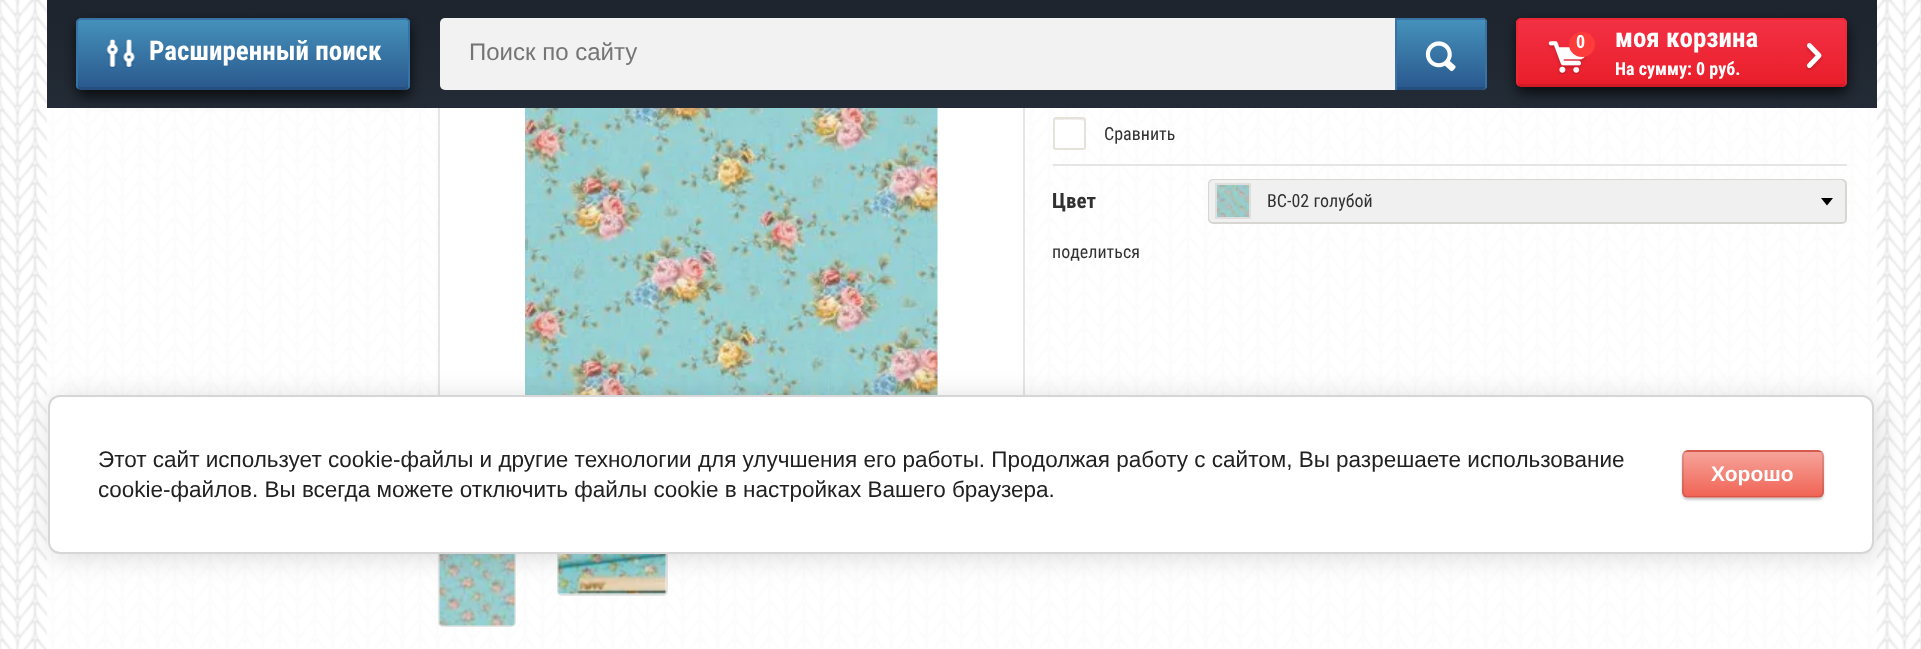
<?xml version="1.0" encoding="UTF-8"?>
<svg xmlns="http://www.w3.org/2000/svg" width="1921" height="649">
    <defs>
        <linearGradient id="g1" gradientUnits="userSpaceOnUse" x1="962" y1="108" x2="962" y2="0"><stop offset="0" stop-color="#232B36"/><stop offset="1" stop-color="#1D242D"/></linearGradient>
        <filter id="blur1" x="-50%" y="-200%" width="200%" height="500%"><feGaussianBlur stdDeviation="7"/></filter>
        <clipPath id="clip1"><rect x="77" y="18" width="333" height="72" rx="5"/></clipPath>
        <linearGradient id="g2" gradientUnits="userSpaceOnUse" x1="243" y1="90" x2="243" y2="20"><stop offset="0" stop-color="#29578D"/><stop offset="1" stop-color="#4591BB"/></linearGradient>
        <clipPath id="clip2"><rect x="440" y="18" width="1047" height="72" rx="5"/></clipPath>
        <linearGradient id="g3" gradientUnits="userSpaceOnUse" x1="1441" y1="20" x2="1441" y2="-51"><stop offset="0" stop-color="#29578D"/><stop offset="1" stop-color="#4591BB"/></linearGradient>
        <linearGradient id="g4" gradientUnits="userSpaceOnUse" x1="1441" y1="90" x2="1441" y2="20"><stop offset="0" stop-color="#29578D"/><stop offset="1" stop-color="#4591BB"/></linearGradient>
        <clipPath id="clip3"><rect x="1517" y="18" width="330" height="69" rx="5"/></clipPath>
        <linearGradient id="g5" gradientUnits="userSpaceOnUse" x1="1682" y1="20" x2="1682" y2="-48"><stop offset="0" stop-color="#EA1D29"/><stop offset="1" stop-color="#F23145"/></linearGradient>
        <linearGradient id="g6" gradientUnits="userSpaceOnUse" x1="1682" y1="87" x2="1682" y2="20"><stop offset="0" stop-color="#EA1D29"/><stop offset="1" stop-color="#F23145"/></linearGradient>
        <filter id="blur2" x="-50%" y="-200%" width="200%" height="500%"><feGaussianBlur stdDeviation="13.5"/></filter>
        <filter id="blur3" x="-50%" y="-200%" width="200%" height="500%"><feGaussianBlur stdDeviation="1"/></filter>
        <clipPath id="clip4"><rect x="1682" y="450" width="142" height="48" rx="6"/></clipPath>
        <linearGradient id="g7" gradientUnits="userSpaceOnUse" x1="1753" y1="407" x2="1753" y2="452"><stop offset="0" stop-color="#F6A39A"/><stop offset="1" stop-color="#F06354"/></linearGradient>
        <linearGradient id="g8" gradientUnits="userSpaceOnUse" x1="1753" y1="452" x2="1753" y2="497"><stop offset="0" stop-color="#F6A39A"/><stop offset="1" stop-color="#F06354"/></linearGradient>
        <linearGradient id="g9" gradientUnits="userSpaceOnUse" x1="1753" y1="497" x2="1753" y2="542"><stop offset="0" stop-color="#F6A39A"/><stop offset="1" stop-color="#F06354"/></linearGradient>
    </defs>
    <rect width="100%" height="100%" fill="#FFFFFF"/>
    <image x="0" y="0" width="1921" height="649" href="img_01.png"/>
    <rect x="440" y="108" width="583" height="287" fill="#FFFFFF"/>
    <rect x="439" y="-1" width="585" height="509" fill="none" stroke="#E5E5E5" stroke-width="2"/>
    <rect x="47" y="0" width="1830" height="108" fill="url(#g1)"/>
    <rect x="77" y="24" width="333" height="72" rx="5" fill="#000000" fill-opacity="0.75" filter="url(#blur1)"/>
    <rect x="77" y="18" width="333" height="72" rx="5" fill="#3774A4"/>
    <g clip-path="url(#clip1)">
        <path d="M 77 20 H 410 V 85 C 410 88 408 90 405 90 H 82 C 79 90 77 88 77 85 Z" fill="url(#g2)"/>
    </g>
    <path d="M 78 82 C 78 84 77 90 81 90 H 406 C 409 89 408 84 408 82 C 408 85 407 87 405 87 H 81 C 79 87 78 85 78 82 Z" fill="#000000" fill-opacity="0.1"/>
    <path d="M 81 18 H 405 C 407 18 410 20 410 22 V 86 C 410 88 407 90 405 90 H 81 C 79 90 76 88 76 86 V 22 C 76 20 79 18 81 18 Z M 81 20 H 405 C 407 20 408 21 408 22 V 86 C 408 88 407 90 405 90 H 81 C 79 90 78 88 78 86 V 22 C 78 21 79 20 81 20 Z" fill="#3774A4" fill-rule="evenodd"/>
    <image x="106" y="39" width="29" height="29" href="img_02.png"/>
    <text x="149" y="60" font-family="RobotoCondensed" font-size="27" font-weight="700" fill="#FFFFFF">Расширенный поиск</text>
    <rect x="440" y="18" width="1047" height="72" rx="5" fill="#F2F2F2"/>
    <text x="469" y="60" font-family="Liberation Sans" font-size="24" fill="#757575">Поиск по сайту</text>
    <path d="M 1395 18 H 1482 C 1485 18 1487 20 1487 23 V 85 C 1487 88 1485 90 1482 90 H 1395 Z" fill="#3774A4"/>
    <g clip-path="url(#clip2)">
        <rect x="1482" y="18" width="5" height="2" fill="url(#g3)"/>
        <path d="M 1395 20 H 1487 V 85 C 1487 88 1485 90 1482 90 H 1395 Z" fill="url(#g4)"/>
    </g>
    <path d="M 1396 90 H 1482 C 1486 90 1485 87 1485 84 L 1484 87 H 1396 Z" fill="#000000" fill-opacity="0.1"/>
    <rect x="1395" y="18" width="90" height="2" fill="#3774A4"/>
    <g clip-path="url(#clip2)">
        <rect x="1485" y="20" width="2" height="69" fill="#3774A4"/>
    </g>
    <rect x="1395" y="18" width="2" height="72" fill="#3774A4"/>
    <image x="1425" y="41" width="31" height="31" href="img_03.png"/>
    <rect x="1517" y="24" width="330" height="69" rx="5" fill="#000000" fill-opacity="0.75" filter="url(#blur1)"/>
    <rect x="1517" y="18" width="330" height="69" rx="5" fill="#EE2737"/>
    <g clip-path="url(#clip3)">
        <rect x="1517" y="18" width="330" height="2" fill="url(#g5)"/>
        <path d="M 1517 20 H 1847 V 82 C 1847 85 1845 87 1842 87 H 1522 C 1519 87 1517 85 1517 82 Z" fill="url(#g6)"/>
    </g>
    <path d="M 1518 80 V 82 C 1518 85 1519 87 1521 87 H 1842 C 1844 87 1845 85 1845 82 V 80 C 1845 82 1844 84 1842 84 H 1521 C 1519 84 1518 82 1518 80 Z" fill="#000000" fill-opacity="0.1"/>
    <path d="M 1521 18 H 1842 C 1844 18 1846 20 1846 22 V 82 C 1846 85 1844 87 1842 87 H 1521 C 1519 87 1516 85 1516 82 V 22 C 1516 20 1519 18 1521 18 Z M 1521 20 H 1842 C 1844 20 1845 21 1845 22 V 82 C 1845 85 1844 87 1842 87 H 1521 C 1519 87 1518 85 1518 82 V 22 C 1518 21 1519 20 1521 20 Z" fill="#EE2737" fill-rule="evenodd"/>
    <image x="1547" y="41" width="40" height="33" href="img_04.png"/>
    <rect x="1569" y="32" width="26" height="25" rx="12.5" fill="#FF3C3C"/>
    <text x="1576" y="48" font-family="RobotoCondensed" font-size="18" font-weight="700" fill="#FFFFFF">0</text>
    <text x="1615" y="47" font-family="RobotoCondensed" font-size="27" font-weight="700" fill="#FFFFFF">моя корзина</text>
    <text x="1615" y="75" font-family="RobotoCondensed" font-size="18" font-weight="700" fill="#FFFFFF">На сумму: 0 руб.</text>
    <image x="1806" y="43" width="17" height="28" href="img_05.png"/>
    <image x="525" y="108" width="413" height="287" href="img_06.png"/>
    <rect x="439" y="517" width="76" height="109" rx="4" fill="none" stroke="#E5E5E5" stroke-width="2"/>
    <image x="439" y="554" width="76" height="72" href="img_07.png"/>
    <rect x="558" y="517" width="109" height="78" rx="4" fill="none" stroke="#E5E5E5" stroke-width="2"/>
    <image x="557" y="554" width="110" height="41" href="img_08.png"/>
    <rect x="1053" y="117" width="33" height="33" rx="3" fill="#FFFFFF"/>
    <path d="M 1056 120 C 1061 120 1083.5 119 1084 121 V 149 C 1084.5 148.5 1085 148 1085 147.5 V 120.5 C 1085 119.5 1084.5 119 1083.5 119 H 1056.5 C 1055.5 119 1055 119.5 1055 120.5 Z" fill="#EBEBEB"/>
    <rect x="1054" y="118" width="31" height="31" rx="2" fill="none" stroke="#E5E2DA" stroke-width="2"/>
    <text x="1104" y="140" font-family="RobotoCondensed" font-size="18" fill="#313131">Сравнить</text>
    <rect x="1053" y="164" width="794" height="2" fill="#E5E5E5"/>
    <text x="1052" y="208" font-family="RobotoCondensed" font-size="21" font-weight="700" fill="#313131">Цвет</text>
    <rect x="1209" y="180" width="637" height="43" rx="4" fill="#F6F5F1" stroke="#D8D6D0" stroke-width="2"/>
    <rect x="1209" y="180" width="636" height="42" rx="5" fill="#F0F0F0"/>
    <image x="1217" y="185" width="32" height="32" href="img_09.png"/>
    <rect x="1216" y="184" width="34" height="34" fill="none" stroke="#DEDEDE" stroke-width="2"/>
    <text x="1267" y="207" font-family="RobotoCondensed" font-size="18" fill="#313131">ВС-02 голубой</text>
    <path d="M 1821 198 H 1833 L 1827 205.5 Z" fill="#000000"/>
    <text x="1052" y="258" font-family="RobotoCondensed" font-size="18" fill="#313131">поделиться</text>
    <rect x="51" y="398" width="1826" height="159" rx="12" fill="#000000" fill-opacity="0.14" filter="url(#blur2)"/>
    <rect x="49" y="396" width="1824" height="157" rx="11" fill="#FFFFFF" stroke="#D6D6D6" stroke-width="2"/>
    <text font-family="Liberation Sans" font-size="22.5" fill="#212121">
        <tspan x="98" y="467">Этот сайт использует cookie-файлы и другие технологии для улучшения его работы. Продолжая работу с сайтом, Вы разрешаете использование</tspan>
        <tspan x="98" y="497">cookie-файлов. Вы всегда можете отключить файлы cookie в настройках Вашего браузера.</tspan>
    </text>
    <rect x="1682" y="452" width="142" height="48" rx="6" fill="#000000" fill-opacity="0.2" filter="url(#blur3)"/>
    <g clip-path="url(#clip4)">
        <rect x="1682" y="450" width="142" height="2" fill="url(#g7)"/>
        <rect x="1682" y="452" width="142" height="45" fill="url(#g8)"/>
        <rect x="1682" y="497" width="142" height="1" fill="url(#g9)"/>
    </g>
    <rect x="1683" y="451" width="140" height="46" rx="5" fill="none" stroke="#000000" stroke-opacity="0.1" stroke-width="2"/>
    <text x="1711" y="481" font-family="Liberation Sans" font-size="21" font-weight="700" fill="#FFFFFF">Хорошо</text>
</svg>
